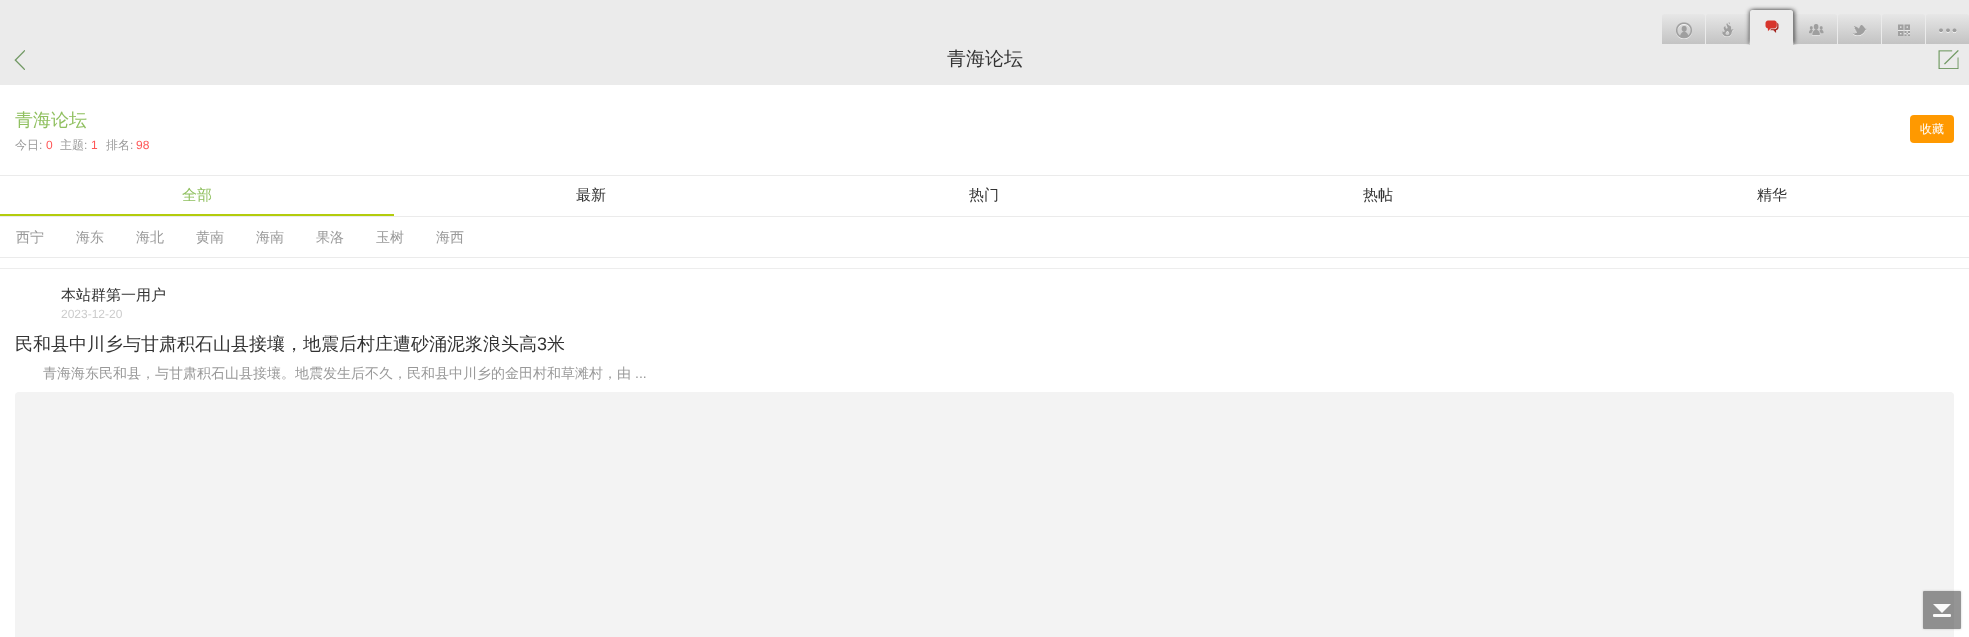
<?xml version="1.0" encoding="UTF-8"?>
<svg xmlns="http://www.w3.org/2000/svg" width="1969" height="637">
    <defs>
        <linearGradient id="g1" gradientUnits="userSpaceOnUse" x1="1662" y1="14" x2="1662" y2="44"><stop offset="0" stop-color="#E7E7E7"/><stop offset="1" stop-color="#C3C3C3"/></linearGradient>
        <linearGradient id="g2" gradientUnits="userSpaceOnUse" x1="1706" y1="14" x2="1706" y2="44"><stop offset="0" stop-color="#E7E7E7"/><stop offset="1" stop-color="#C3C3C3"/></linearGradient>
        <linearGradient id="g3" gradientUnits="userSpaceOnUse" x1="1794" y1="14" x2="1794" y2="44"><stop offset="0" stop-color="#E7E7E7"/><stop offset="1" stop-color="#C3C3C3"/></linearGradient>
        <clipPath id="clip1"><rect x="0" y="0" width="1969" height="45"/></clipPath>
        <filter id="blur1" x="-50%" y="-200%" width="200%" height="500%"><feGaussianBlur stdDeviation="2"/></filter>
        <linearGradient id="g4" gradientUnits="userSpaceOnUse" x1="1838" y1="14" x2="1838" y2="44"><stop offset="0" stop-color="#E7E7E7"/><stop offset="1" stop-color="#C3C3C3"/></linearGradient>
        <linearGradient id="g5" gradientUnits="userSpaceOnUse" x1="1882" y1="14" x2="1882" y2="44"><stop offset="0" stop-color="#E7E7E7"/><stop offset="1" stop-color="#C3C3C3"/></linearGradient>
        <linearGradient id="g6" gradientUnits="userSpaceOnUse" x1="1926" y1="14" x2="1926" y2="44"><stop offset="0" stop-color="#E7E7E7"/><stop offset="1" stop-color="#C3C3C3"/></linearGradient>
        <clipPath id="clip2"><path d="M 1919 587 H 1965 V 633 H 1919 Z M 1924 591 H 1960 C 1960.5 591 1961 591.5 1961 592 V 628 C 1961 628.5 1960.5 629 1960 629 H 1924 C 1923.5 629 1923 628.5 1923 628 V 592 C 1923 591.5 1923.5 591 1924 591 Z" clip-rule="evenodd"/></clipPath>
        <filter id="blur2" x="-50%" y="-200%" width="200%" height="500%"><feGaussianBlur stdDeviation="1"/></filter>
    </defs>
    <rect width="100%" height="100%" fill="#EBEBEB"/>
    <path d="M 1664 14 H 1703 C 1704 14 1705 15 1705 16 V 44 H 1662 V 16 C 1662 15 1663 14 1664 14 Z" fill="url(#g1)"/>
    <image x="1676" y="22" width="16" height="17" href="img_01.png"/>
    <path d="M 1708 14 H 1747 C 1748 14 1749 15 1749 16 V 44 H 1706 V 16 C 1706 15 1707 14 1708 14 Z" fill="url(#g2)"/>
    <image x="1722" y="22" width="12" height="15" href="img_02.png"/>
    <path d="M 1796 14 H 1835 C 1836 14 1837 15 1837 16 V 44 H 1794 V 16 C 1794 15 1795 14 1796 14 Z" fill="url(#g3)"/>
    <g clip-path="url(#clip1)">
        <rect x="1752" y="10" width="43" height="34" rx="2" fill="#000000" fill-opacity="0.5" filter="url(#blur1)"/>
        <rect x="1749" y="10" width="43" height="34" rx="2" fill="#000000" fill-opacity="0.5" filter="url(#blur1)"/>
    </g>
    <path d="M 1752 10 H 1791 C 1792 10 1793 11 1793 12 V 44 H 1750 V 12 C 1750 11 1751 10 1752 10 Z" fill="#EBEBEB"/>
    <image x="1765" y="20" width="14" height="13" href="img_03.png"/>
    <rect x="1750" y="44" width="43" height="1" fill="#EBEBEB"/>
    <image x="1809" y="24" width="15" height="12" href="img_04.png"/>
    <path d="M 1840 14 H 1879 C 1880 14 1881 15 1881 16 V 44 H 1838 V 16 C 1838 15 1839 14 1840 14 Z" fill="url(#g4)"/>
    <image x="1853" y="25" width="14" height="11" href="img_05.png"/>
    <path d="M 1884 14 H 1923 C 1924 14 1925 15 1925 16 V 44 H 1882 V 16 C 1882 15 1883 14 1884 14 Z" fill="url(#g5)"/>
    <image x="1898" y="24" width="12" height="12" href="img_06.png"/>
    <path d="M 1928 14 H 1967 C 1968 14 1969 15 1969 16 V 44 H 1926 V 16 C 1926 15 1927 14 1928 14 Z" fill="url(#g6)"/>
    <image x="1939" y="28" width="18" height="5" href="img_07.png"/>
    <image x="14" y="50" width="11" height="20" href="img_08.png"/>
    <text x="947" y="65" font-family="WenQuanYi Zen Hei" font-size="19" font-weight="500" fill="#333333">青海论坛</text>
    <image x="1938" y="50" width="21" height="19" href="img_09.png"/>
    <rect x="0" y="85" width="1969" height="90" fill="#FFFFFF"/>
    <text x="15" y="126" font-family="WenQuanYi Zen Hei" font-size="18" font-weight="500" fill="#90C060">青海论坛</text>
    <rect x="1910" y="115" width="44" height="28" rx="4" fill="#FF9900"/>
    <text x="1920" y="133" font-family="WenQuanYi Zen Hei" font-size="12" font-weight="500" fill="#FFFFFF">收藏</text>
    <text x="15" y="149" font-family="WenQuanYi Zen Hei" font-size="12" font-weight="500" fill="#999999">今日</text>
    <text x="39" y="149" font-family="Liberation Sans" font-size="12" fill="#999999">:</text>
    <text x="46" y="149" font-family="Liberation Sans" font-size="12" fill="#FF5656">0</text>
    <text x="60" y="149" font-family="WenQuanYi Zen Hei" font-size="12" font-weight="500" fill="#999999">主题</text>
    <text x="84" y="149" font-family="Liberation Sans" font-size="12" fill="#999999">:</text>
    <text x="91" y="149" font-family="Liberation Sans" font-size="12" fill="#FF5656">1</text>
    <text x="106" y="149" font-family="WenQuanYi Zen Hei" font-size="12" font-weight="500" fill="#999999">排名</text>
    <text x="130" y="149" font-family="Liberation Sans" font-size="12" fill="#999999">:</text>
    <text x="136" y="149" font-family="Liberation Sans" font-size="12" fill="#FF5656">98</text>
    <rect x="0" y="176" width="1969" height="40" fill="#FFFFFF"/>
    <rect x="0" y="214" width="394" height="2" fill="#B3CC0D"/>
    <text x="182" y="200" font-family="WenQuanYi Zen Hei" font-size="15" font-weight="500" fill="#90C060">全部</text>
    <text x="576" y="200" font-family="WenQuanYi Zen Hei" font-size="15" font-weight="500" fill="#333333">最新</text>
    <text x="969" y="200" font-family="WenQuanYi Zen Hei" font-size="15" font-weight="500" fill="#333333">热门</text>
    <text x="1363" y="200" font-family="WenQuanYi Zen Hei" font-size="15" font-weight="500" fill="#333333">热帖</text>
    <text x="1757" y="200" font-family="WenQuanYi Zen Hei" font-size="15" font-weight="500" fill="#333333">精华</text>
    <rect x="0" y="217" width="1969" height="40" fill="#FFFFFF"/>
    <text x="16" y="242" font-family="WenQuanYi Zen Hei" font-size="14" font-weight="500" fill="#999999">西宁</text>
    <text x="76" y="242" font-family="WenQuanYi Zen Hei" font-size="14" font-weight="500" fill="#999999">海东</text>
    <text x="136" y="242" font-family="WenQuanYi Zen Hei" font-size="14" font-weight="500" fill="#999999">海北</text>
    <text x="196" y="242" font-family="WenQuanYi Zen Hei" font-size="14" font-weight="500" fill="#999999">黄南</text>
    <text x="256" y="242" font-family="WenQuanYi Zen Hei" font-size="14" font-weight="500" fill="#999999">海南</text>
    <text x="316" y="242" font-family="WenQuanYi Zen Hei" font-size="14" font-weight="500" fill="#999999">果洛</text>
    <text x="376" y="242" font-family="WenQuanYi Zen Hei" font-size="14" font-weight="500" fill="#999999">玉树</text>
    <text x="436" y="242" font-family="WenQuanYi Zen Hei" font-size="14" font-weight="500" fill="#999999">海西</text>
    <rect x="0" y="258" width="1969" height="379" fill="#FFFFFF"/>
    <rect x="0" y="268" width="1969" height="1" fill="#EDEDED"/>
    <text x="61" y="300" font-family="WenQuanYi Zen Hei" font-size="15" font-weight="500" fill="#333333">本站群第一用户</text>
    <text x="61" y="318" font-family="Liberation Sans" font-size="12" fill="#CCCCCC">2023-12-20</text>
    <text x="15" y="350" font-family="WenQuanYi Zen Hei" font-size="18" font-weight="500" fill="#333333">民和县中川乡与甘肃积石山县接壤，地震后村庄遭砂涌泥浆浪头高</text>
    <text x="537" y="350" font-family="Liberation Sans" font-size="18" fill="#333333">3</text>
    <text x="547" y="350" font-family="WenQuanYi Zen Hei" font-size="18" font-weight="500" fill="#333333">米</text>
    <text x="43" y="378" font-family="WenQuanYi Zen Hei" font-size="14" font-weight="500" fill="#999999">青海海东民和县，与甘肃积石山县接壤。地震发生后不久，民和县中川乡的金田村和草滩村，由</text>
    <text x="635" y="378" font-family="Liberation Sans" font-size="14" fill="#999999">...</text>
    <rect x="15" y="392" width="1939" height="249" rx="4" fill="#F3F3F3"/>
    <g clip-path="url(#clip2)">
        <rect x="1923" y="591" width="38" height="38" rx="1" fill="#000000" fill-opacity="0.19" filter="url(#blur2)"/>
    </g>
    <rect x="1923" y="591" width="38" height="38" rx="1" fill="#404040" fill-opacity="0.56"/>
    <path d="M 1933 604 H 1951 L 1942 613 Z" fill="#FAFAFA"/>
    <rect x="1933" y="614" width="18" height="3" rx="1" fill="#FAFAFA"/>
</svg>
